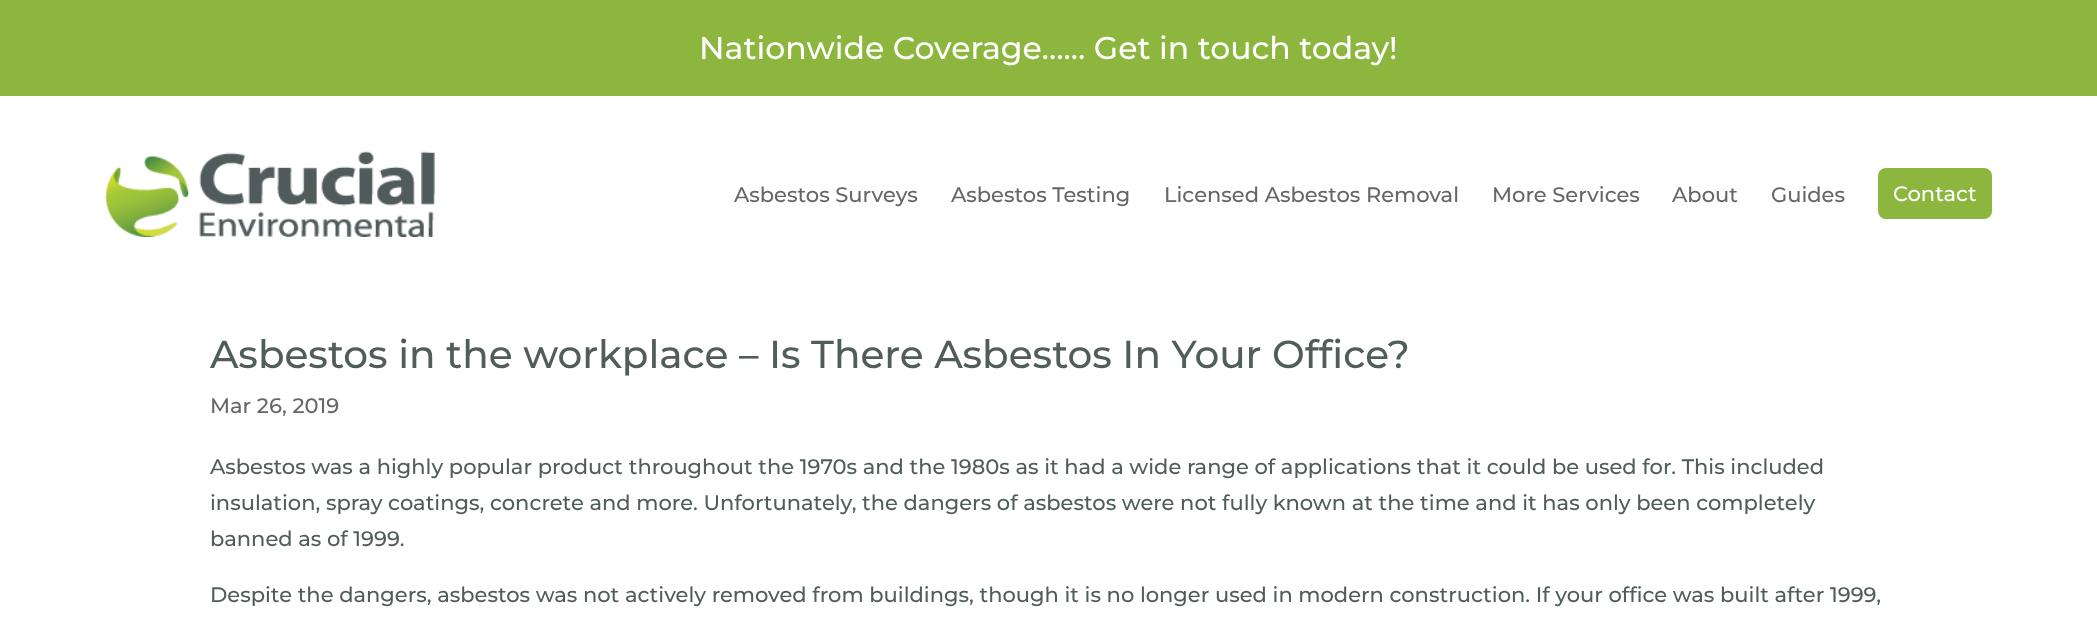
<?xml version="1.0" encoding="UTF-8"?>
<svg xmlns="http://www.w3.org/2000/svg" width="2097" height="618">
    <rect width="100%" height="100%" fill="#FFFFFF"/>
    <rect x="0" y="0" width="2097" height="96" fill="#8CB63D"/>
    <text x="699" y="59" font-family="Montserrat" font-size="31.5" font-weight="500" fill="#FFFFFF">Nationwide Coverage…… Get in touch today!</text>
    <image x="105" y="151" width="330" height="86" href="img_01.png"/>
    <text x="734" y="202" font-family="Montserrat" font-size="21" font-weight="500" fill="#666666">Asbestos Surveys</text>
    <text x="951" y="202" font-family="Montserrat" font-size="21" font-weight="500" fill="#666666">Asbestos Testing</text>
    <text x="1164" y="202" font-family="Montserrat" font-size="21" font-weight="500" fill="#666666">Licensed Asbestos Removal</text>
    <text x="1492" y="202" font-family="Montserrat" font-size="21" font-weight="500" fill="#666666">More Services</text>
    <text x="1672" y="202" font-family="Montserrat" font-size="21" font-weight="500" fill="#666666">About</text>
    <text x="1771" y="202" font-family="Montserrat" font-size="21" font-weight="500" fill="#666666">Guides</text>
    <rect x="1878" y="168" width="114" height="51" rx="8" fill="#8CB63D"/>
    <text x="1893" y="201" font-family="Montserrat" font-size="21" font-weight="500" fill="#FFFFFF">Contact</text>
    <text x="210" y="368" font-family="Montserrat" font-size="39" font-weight="500" fill="#515D58">Asbestos in the workplace – Is There Asbestos In Your Office?</text>
    <text x="210" y="413" font-family="Montserrat" font-size="21" font-weight="500" fill="#666666">Mar 26, 2019</text>
    <text font-family="Montserrat" font-size="21" font-weight="500" fill="#515D58">
        <tspan x="210" y="474">Asbestos was a highly popular product throughout the 1970s and the 1980s as it had a wide range of applications that it could be used for. This included</tspan>
        <tspan x="210" y="510">insulation, spray coatings, concrete and more. Unfortunately, the dangers of asbestos were not fully known at the time and it has only been completely</tspan>
        <tspan x="210" y="546">banned as of 1999.</tspan>
    </text>
    <text x="210" y="602" font-family="Montserrat" font-size="21" font-weight="500" fill="#515D58">Despite the dangers, asbestos was not actively removed from buildings, though it is no longer used in modern construction. If your office was built after 1999,</text>
</svg>
